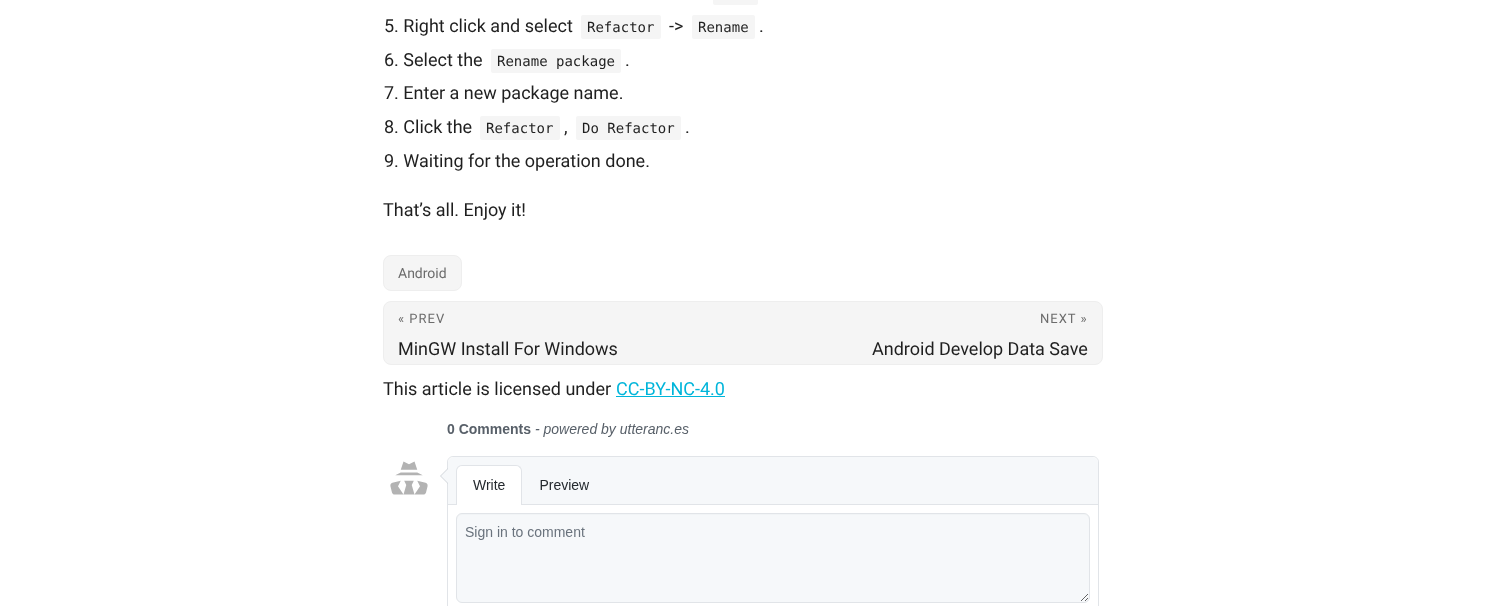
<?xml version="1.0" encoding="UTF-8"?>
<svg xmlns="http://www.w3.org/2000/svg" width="1486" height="606">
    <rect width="100%" height="100%" fill="#FFFFFF"/>
    <rect x="713" y="-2" width="45" height="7" rx="2" fill="#F5F5F5"/>
    <text x="384" y="32" font-family="Roboto" font-size="18" fill="#1F1F1F">5. Right click and select</text>
    <rect x="581" y="15" width="80" height="24" rx="2" fill="#F5F5F5"/>
    <text x="587" y="32" font-family="DejaVu Sans Mono" font-size="14" fill="#1F1F1F">Refactor</text>
    <text x="669" y="32" font-family="Roboto" font-size="18" fill="#1F1F1F">-&gt;</text>
    <rect x="692" y="15" width="63" height="24" rx="2" fill="#F5F5F5"/>
    <text x="698" y="32" font-family="DejaVu Sans Mono" font-size="14" fill="#1F1F1F">Rename</text>
    <text x="759" y="32" font-family="Roboto" font-size="18" fill="#1F1F1F">.</text>
    <text x="384" y="66" font-family="Roboto" font-size="18" fill="#1F1F1F">6. Select the</text>
    <rect x="491" y="49" width="130" height="24" rx="2" fill="#F5F5F5"/>
    <text x="497" y="66" font-family="DejaVu Sans Mono" font-size="14" fill="#1F1F1F">Rename package</text>
    <text x="625" y="66" font-family="Roboto" font-size="18" fill="#1F1F1F">.</text>
    <text font-family="Roboto" font-size="18" fill="#1F1F1F">
        <tspan x="384" y="99">7. Enter a new package name.</tspan>
        <tspan x="384" y="133">8. Click the</tspan>
    </text>
    <rect x="480" y="116" width="80" height="24" rx="2" fill="#F5F5F5"/>
    <text x="486" y="133" font-family="DejaVu Sans Mono" font-size="14" fill="#1F1F1F">Refactor</text>
    <text x="564" y="133" font-family="Roboto" font-size="18" fill="#1F1F1F">,</text>
    <rect x="576" y="116" width="105" height="24" rx="2" fill="#F5F5F5"/>
    <text x="582" y="133" font-family="DejaVu Sans Mono" font-size="14" fill="#1F1F1F">Do Refactor</text>
    <text x="685" y="133" font-family="Roboto" font-size="18" fill="#1F1F1F">.</text>
    <text x="384" y="167" font-family="Roboto" font-size="18" fill="#1F1F1F">9. Waiting for the operation done.</text>
    <text x="383" y="216" font-family="Roboto" font-size="18" fill="#1F1F1F">That’s all. Enjoy it!</text>
    <rect x="383.5" y="255.5" width="78" height="35" rx="7.5" fill="#F5F5F5" stroke="#EEEEEE"/>
    <text x="398" y="278" font-family="Roboto" font-size="14" fill="#6C6C6C">Android</text>
    <rect x="383.5" y="301.5" width="719" height="63" rx="7.5" fill="#F5F5F5" stroke="#EEEEEE"/>
    <text x="398" y="323" font-family="Roboto" font-size="13" letter-spacing="1" fill="#6C6C6C">« PREV</text>
    <text x="398" y="355" font-family="Roboto" font-size="18" fill="#1F1F1F">MinGW Install For Windows</text>
    <text x="1040" y="323" font-family="Roboto" font-size="13" letter-spacing="1" fill="#6C6C6C">NEXT »</text>
    <text x="872" y="355" font-family="Roboto" font-size="18" fill="#1F1F1F">Android Develop Data Save</text>
    <text x="383" y="395" font-family="Roboto" font-size="18" fill="#1F1F1F">This article is licensed under</text>
    <text x="616" y="395" font-family="Roboto" font-size="18" fill="#00B5DA">CC-BY-NC-4.0</text>
    <rect x="616" y="396" width="109" height="1" fill="#00B5DA"/>
    <image x="390" y="423" width="709" height="183" href="img_01.png"/>
</svg>
